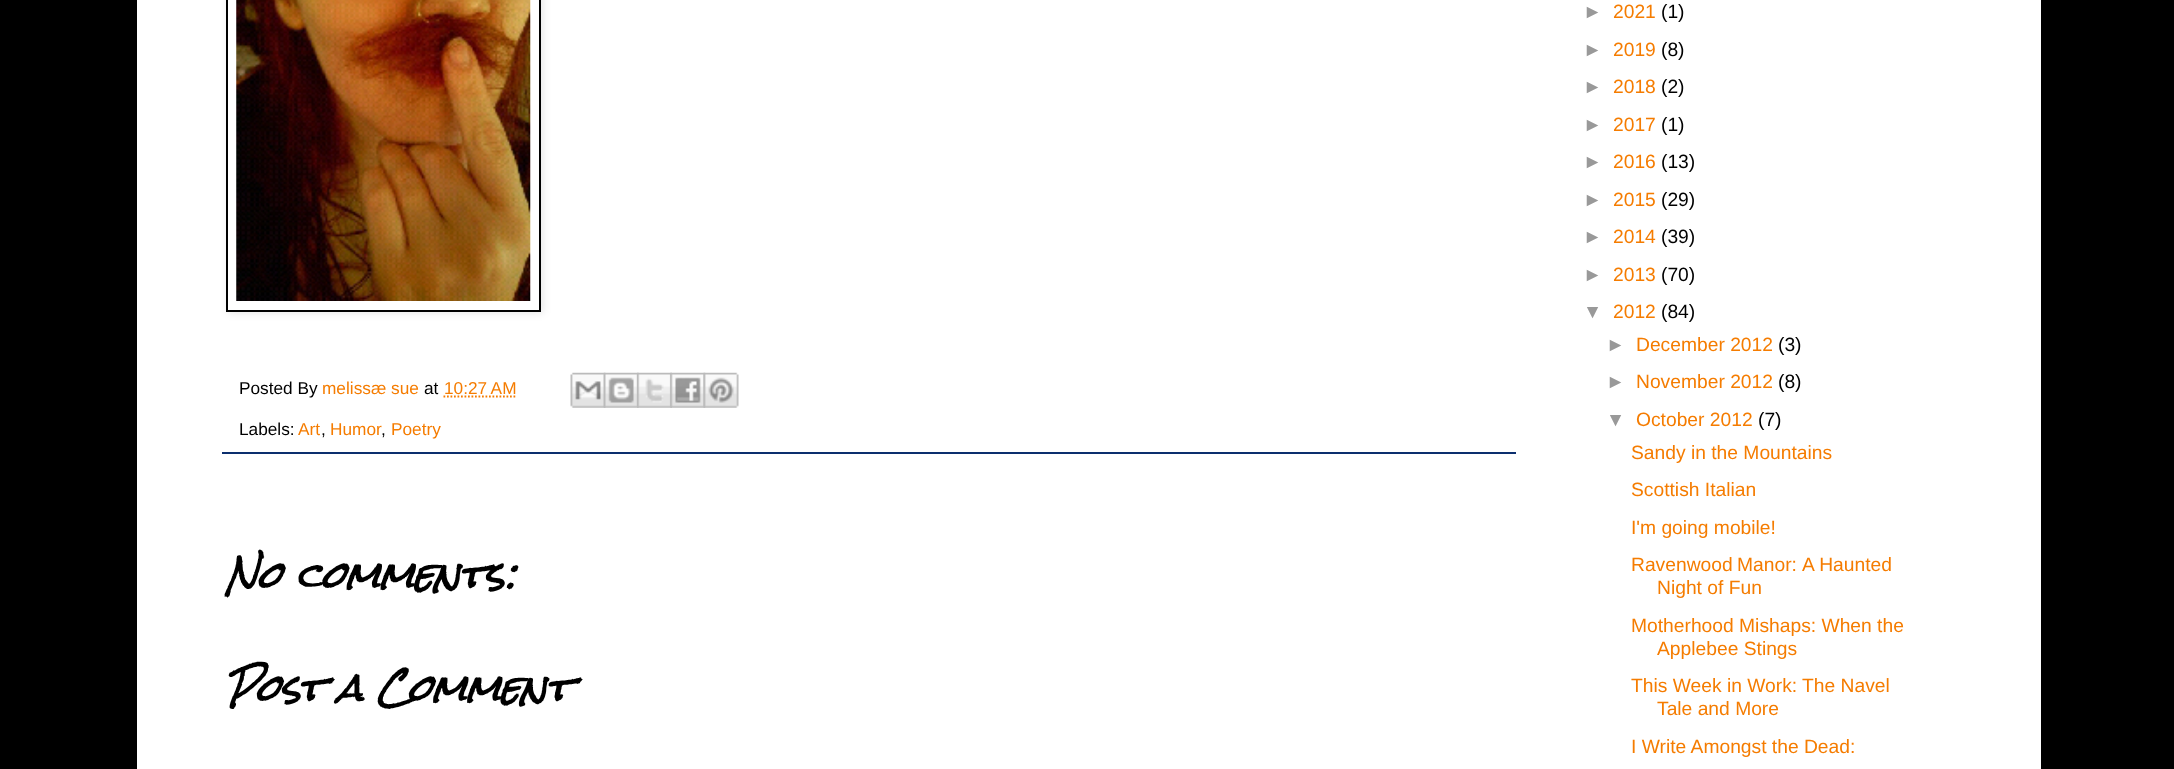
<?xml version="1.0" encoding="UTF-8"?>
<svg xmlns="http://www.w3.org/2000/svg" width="2174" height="769">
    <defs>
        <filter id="blur1" x="-50%" y="-200%" width="200%" height="500%"><feGaussianBlur stdDeviation="4.5"/></filter>
    </defs>
    <rect width="100%" height="100%" fill="#000000"/>
    <rect x="137" y="0" width="1904" height="769" fill="#FFFFFF"/>
    <rect x="228" y="-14" width="315" height="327" fill="#000000" fill-opacity="0.1" filter="url(#blur1)"/>
    <rect x="227" y="-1" width="313" height="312" fill="#FFFFFF" stroke="#000000" stroke-width="2"/>
    <image x="236" y="0" width="295" height="301" href="img_01.png"/>
    <rect x="222" y="452" width="1294" height="2" fill="#0C2F6E"/>
    <text x="239" y="394" font-family="Liberation Sans" font-size="17.25" fill="#000000">Posted By</text>
    <text x="322" y="394" font-family="Liberation Sans" font-size="17.25" fill="#F57C00">melissæ sue</text>
    <text x="424" y="394" font-family="Liberation Sans" font-size="17.25" fill="#000000">at</text>
    <text x="444" y="394" font-family="Liberation Sans" font-size="17.25" fill="#F57C00">10:27 AM</text>
    <path d="M 443.5 396.5 H 516" fill="none" stroke="#F57C00" stroke-width="1.8" stroke-dasharray="1.75 1.75"/>
    <image x="570" y="372" width="36" height="36" href="img_02.png"/>
    <image x="603" y="372" width="36" height="36" href="img_03.png"/>
    <image x="637" y="372" width="35" height="36" href="img_04.png"/>
    <image x="670" y="372" width="36" height="36" href="img_05.png"/>
    <image x="703" y="372" width="36" height="36" href="img_06.png"/>
    <text x="239" y="435" font-family="Liberation Sans" font-size="17.25" fill="#000000">Labels:</text>
    <text x="298" y="435" font-family="Liberation Sans" font-size="17.25" fill="#F57C00">Art</text>
    <text x="321" y="435" font-family="Liberation Sans" font-size="17.25" fill="#000000">,</text>
    <text x="330" y="435" font-family="Liberation Sans" font-size="17.25" fill="#F57C00">Humor</text>
    <text x="381" y="435" font-family="Liberation Sans" font-size="17.25" fill="#000000">,</text>
    <text x="391" y="435" font-family="Liberation Sans" font-size="17.25" fill="#F57C00">Poetry</text>
    <text x="225" y="589" font-family="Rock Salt" font-size="35" font-weight="700" font-style="italic" fill="#000000">No comments:</text>
    <text x="225" y="702" font-family="Rock Salt" font-size="35" font-weight="700" font-style="italic" fill="#000000">Post a Comment</text>
    <text x="1583" y="18" font-family="Liberation Sans" font-size="19.25" fill="#999999">►</text>
    <text x="1613" y="18" font-family="Liberation Sans" font-size="19.25" fill="#F57C00">2021</text>
    <text x="1661" y="18" font-family="Liberation Sans" font-size="19.25" fill="#000000">(1)</text>
    <text x="1583" y="56" font-family="Liberation Sans" font-size="19.25" fill="#999999">►</text>
    <text x="1613" y="56" font-family="Liberation Sans" font-size="19.25" fill="#F57C00">2019</text>
    <text x="1661" y="56" font-family="Liberation Sans" font-size="19.25" fill="#000000">(8)</text>
    <text x="1583" y="93" font-family="Liberation Sans" font-size="19.25" fill="#999999">►</text>
    <text x="1613" y="93" font-family="Liberation Sans" font-size="19.25" fill="#F57C00">2018</text>
    <text x="1661" y="93" font-family="Liberation Sans" font-size="19.25" fill="#000000">(2)</text>
    <text x="1583" y="131" font-family="Liberation Sans" font-size="19.25" fill="#999999">►</text>
    <text x="1613" y="131" font-family="Liberation Sans" font-size="19.25" fill="#F57C00">2017</text>
    <text x="1661" y="131" font-family="Liberation Sans" font-size="19.25" fill="#000000">(1)</text>
    <text x="1583" y="168" font-family="Liberation Sans" font-size="19.25" fill="#999999">►</text>
    <text x="1613" y="168" font-family="Liberation Sans" font-size="19.25" fill="#F57C00">2016</text>
    <text x="1661" y="168" font-family="Liberation Sans" font-size="19.25" fill="#000000">(13)</text>
    <text x="1583" y="206" font-family="Liberation Sans" font-size="19.25" fill="#999999">►</text>
    <text x="1613" y="206" font-family="Liberation Sans" font-size="19.25" fill="#F57C00">2015</text>
    <text x="1661" y="206" font-family="Liberation Sans" font-size="19.25" fill="#000000">(29)</text>
    <text x="1583" y="243" font-family="Liberation Sans" font-size="19.25" fill="#999999">►</text>
    <text x="1613" y="243" font-family="Liberation Sans" font-size="19.25" fill="#F57C00">2014</text>
    <text x="1661" y="243" font-family="Liberation Sans" font-size="19.25" fill="#000000">(39)</text>
    <text x="1583" y="281" font-family="Liberation Sans" font-size="19.25" fill="#999999">►</text>
    <text x="1613" y="281" font-family="Liberation Sans" font-size="19.25" fill="#F57C00">2013</text>
    <text x="1661" y="281" font-family="Liberation Sans" font-size="19.25" fill="#000000">(70)</text>
    <text x="1583" y="318" font-family="Liberation Sans" font-size="19.25" fill="#999999">▼</text>
    <text x="1613" y="318" font-family="Liberation Sans" font-size="19.25" fill="#F57C00">2012</text>
    <text x="1661" y="318" font-family="Liberation Sans" font-size="19.25" fill="#000000">(84)</text>
    <text x="1606" y="351" font-family="Liberation Sans" font-size="19.25" fill="#999999">►</text>
    <text x="1636" y="351" font-family="Liberation Sans" font-size="19.25" fill="#F57C00">December 2012</text>
    <text x="1778" y="351" font-family="Liberation Sans" font-size="19.25" fill="#000000">(3)</text>
    <text x="1606" y="388" font-family="Liberation Sans" font-size="19.25" fill="#999999">►</text>
    <text x="1636" y="388" font-family="Liberation Sans" font-size="19.25" fill="#F57C00">November 2012</text>
    <text x="1778" y="388" font-family="Liberation Sans" font-size="19.25" fill="#000000">(8)</text>
    <text x="1606" y="426" font-family="Liberation Sans" font-size="19.25" fill="#999999">▼</text>
    <text x="1636" y="426" font-family="Liberation Sans" font-size="19.25" fill="#F57C00">October 2012</text>
    <text x="1758" y="426" font-family="Liberation Sans" font-size="19.25" fill="#000000">(7)</text>
    <text font-family="Liberation Sans" font-size="19.25" fill="#F57C00">
        <tspan x="1631" y="459">Sandy in the Mountains</tspan>
        <tspan x="1631" y="496">Scottish Italian</tspan>
        <tspan x="1631" y="534">I'm going mobile!</tspan>
        <tspan x="1631" y="571" word-spacing="-1">Ravenwood Manor:</tspan>
    </text>
    <text x="1802" y="571" font-family="Liberation Sans" font-size="19.25" fill="#F57C00">A Haunted</text>
    <text x="1657" y="594" font-family="Liberation Sans" font-size="19.25" fill="#F57C00">Night of Fun</text>
    <text x="1631" y="632" font-family="Liberation Sans" font-size="19.25" fill="#F57C00">Motherhood Mishaps: When the</text>
    <text x="1657" y="655" font-family="Liberation Sans" font-size="19.25" fill="#F57C00">Applebee Stings</text>
    <text x="1631" y="692" font-family="Liberation Sans" font-size="19.25" fill="#F57C00">This Week in Work:</text>
    <text x="1802" y="692" font-family="Liberation Sans" font-size="19.25" fill="#F57C00">The Navel</text>
    <text x="1657" y="715" font-family="Liberation Sans" font-size="19.25" fill="#F57C00">Tale and More</text>
    <text x="1631" y="753" font-family="Liberation Sans" font-size="19.25" fill="#F57C00">I Write Amongst the Dead:</text>
</svg>
